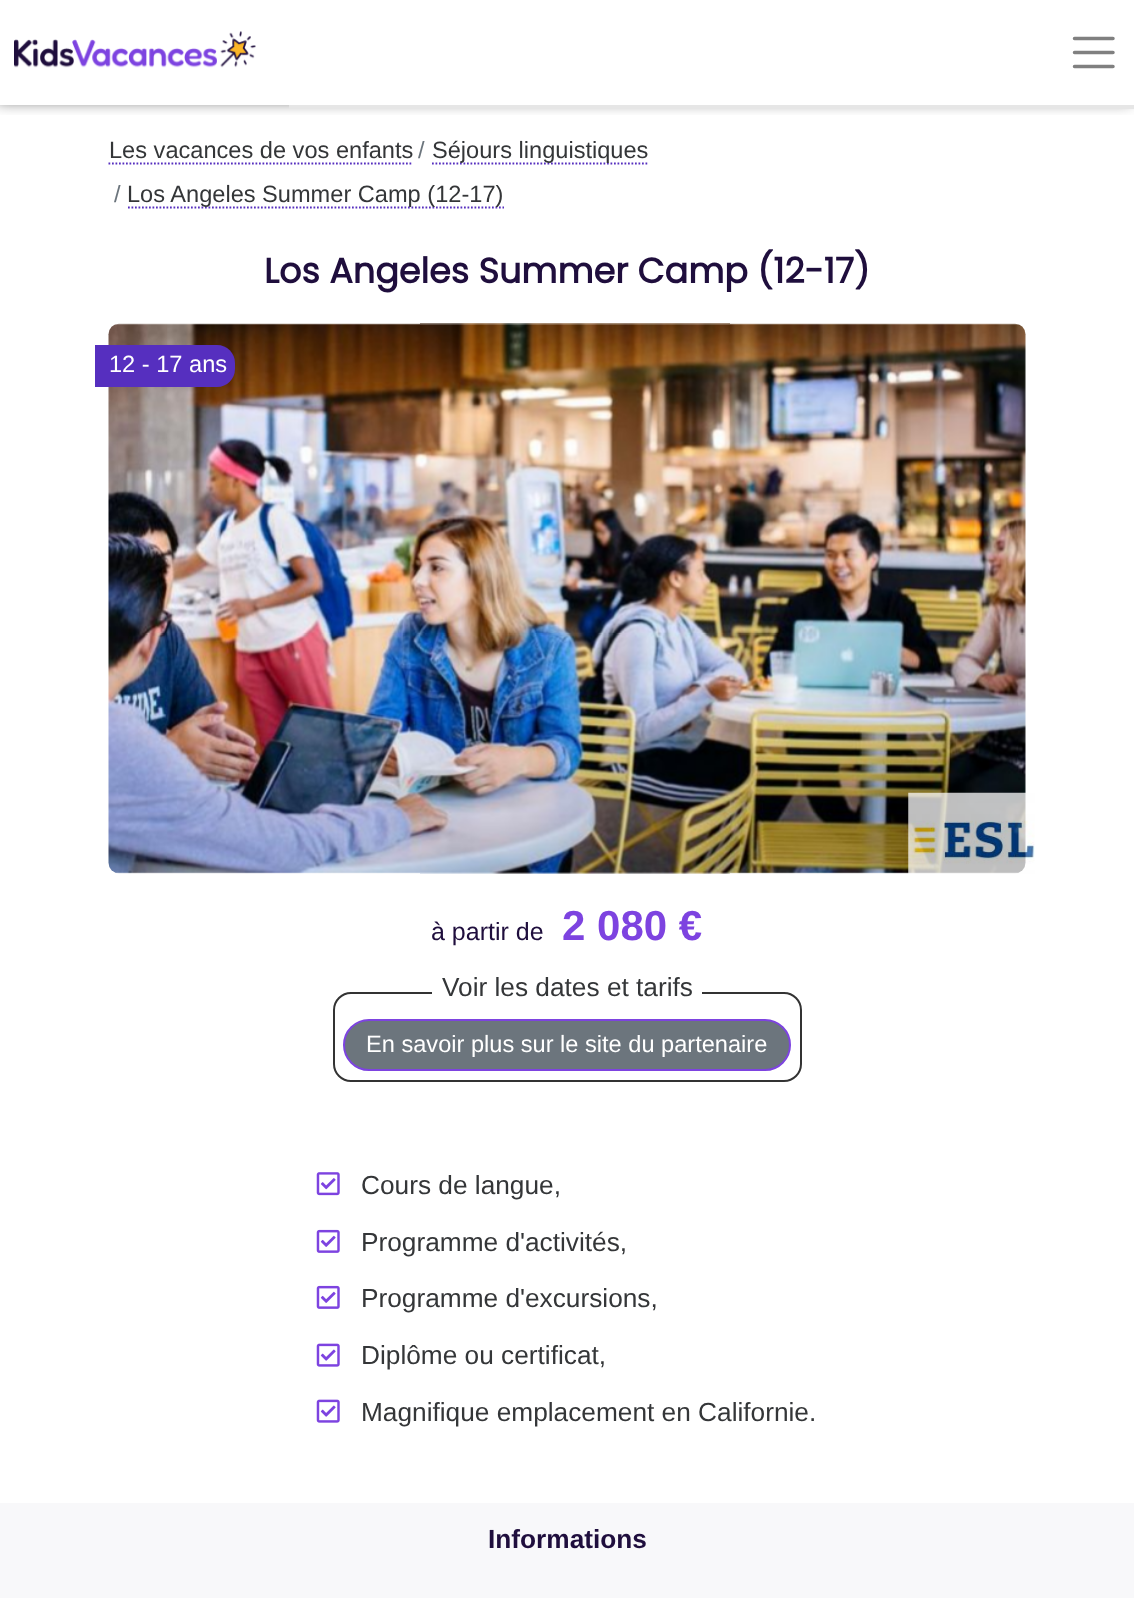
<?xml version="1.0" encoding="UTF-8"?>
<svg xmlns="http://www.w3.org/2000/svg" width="1134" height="1598">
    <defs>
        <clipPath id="clip1"><rect x="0" y="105" width="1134" height="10"/></clipPath>
        <filter id="blur1" x="-50%" y="-200%" width="200%" height="500%"><feGaussianBlur stdDeviation="7"/></filter>
    </defs>
    <rect width="100%" height="100%" fill="#FFFFFF"/>
    <g clip-path="url(#clip1)">
        <rect x="-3" y="-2" width="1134" height="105" fill="#000000" fill-opacity="0.5" filter="url(#blur1)"/>
    </g>
    <image x="14" y="31" width="242" height="37" href="img_01.png"/>
    <path d="M 1074.5 38.5 H 1113 M 1074.5 52.5 H 1113 M 1074.5 66.5 H 1113" fill="none" stroke="#808080" stroke-width="3.5" stroke-linecap="round"/>
    <rect x="289" y="105" width="845" height="4" fill="#E6E6E6"/>
    <text x="109" y="158" font-family="Liberation Sans" font-size="23.6" fill="#343638">Les vacances de vos enfants</text>
    <path d="M 108.5 163.5 H 413" fill="none" stroke="#562FBF" stroke-width="1.8" stroke-dasharray="1.75 1.75"/>
    <text x="418" y="158" font-family="Liberation Sans" font-size="23.6" fill="#6C757D">/</text>
    <path d="M 432 163.5 H 647.5" fill="none" stroke="#562FBF" stroke-width="1.8" stroke-dasharray="1.75 1.75"/>
    <text x="432" y="158" font-family="Liberation Sans" font-size="23.6" fill="#343638">Séjours linguistiques</text>
    <text x="114" y="202" font-family="Liberation Sans" font-size="23.6" fill="#6C757D">/</text>
    <path d="M 128 207.5 H 504" fill="none" stroke="#562FBF" stroke-width="1.8" stroke-dasharray="1.75 1.75"/>
    <text x="127" y="202" font-family="Liberation Sans" font-size="23.6" fill="#343638">Los Angeles Summer Camp (12-17)</text>
    <text x="264" y="283" font-family="Poppins" font-size="35" font-weight="700" fill="#1F0E3D">Los Angeles Summer Camp (12-17)</text>
    <image x="108" y="323" width="918" height="551" href="img_02.png"/>
    <path d="M 95 345 H 217 C 227 345 235 353 235 363 V 369 C 235 379 227 387 217 387 H 95 Z" fill="#562FBF"/>
    <text x="109" y="372" font-family="Liberation Sans" font-size="23.6" fill="#FFFFFF">12 - 17 ans</text>
    <image x="908" y="792" width="127" height="82" href="img_03.png"/>
    <text x="431" y="940" font-family="Liberation Sans" font-size="25" fill="#1F0E3D">à partir de</text>
    <text x="562" y="940" font-family="Liberation Sans" font-size="42" font-weight="700" fill="#7D43E0">2 080 €</text>
    <rect x="334" y="993" width="467" height="88" rx="17" fill="none" stroke="#333333" stroke-width="2"/>
    <rect x="432" y="992" width="270" height="2" fill="#FFFFFF"/>
    <text x="442" y="996" font-family="Liberation Sans" font-size="26.25" fill="#343638">Voir les dates et tarifs</text>
    <rect x="344" y="1020" width="446" height="50" rx="25" fill="#6C757D" stroke="#7D43E0" stroke-width="2"/>
    <text x="366" y="1052" font-family="Liberation Sans" font-size="23.6" fill="#FFFFFF">En savoir plus sur le site du partenaire</text>
    <image x="316" y="1172" width="24" height="24" href="img_04.png"/>
    <text x="361" y="1194" font-family="Liberation Sans" font-size="26.25" fill="#343638">Cours de langue,</text>
    <image x="316" y="1229" width="24" height="24" href="img_05.png"/>
    <text x="361" y="1251" font-family="Liberation Sans" font-size="26.25" fill="#343638">Programme d'activités,</text>
    <image x="316" y="1285" width="24" height="24" href="img_05.png"/>
    <text x="361" y="1307" font-family="Liberation Sans" font-size="26.25" fill="#343638">Programme d'excursions,</text>
    <image x="316" y="1343" width="24" height="24" href="img_06.png"/>
    <text x="361" y="1364" font-family="Liberation Sans" font-size="26.25" fill="#343638">Diplôme ou certificat,</text>
    <image x="316" y="1399" width="24" height="24" href="img_06.png"/>
    <text x="361" y="1421" font-family="Liberation Sans" font-size="26.25" fill="#343638">Magnifique emplacement en Californie.</text>
    <rect x="0" y="1503" width="1134" height="95" fill="#F8F8FA"/>
    <text x="488" y="1548" font-family="Liberation Sans" font-size="26.25" font-weight="700" fill="#1F0E3D">Informations</text>
</svg>
